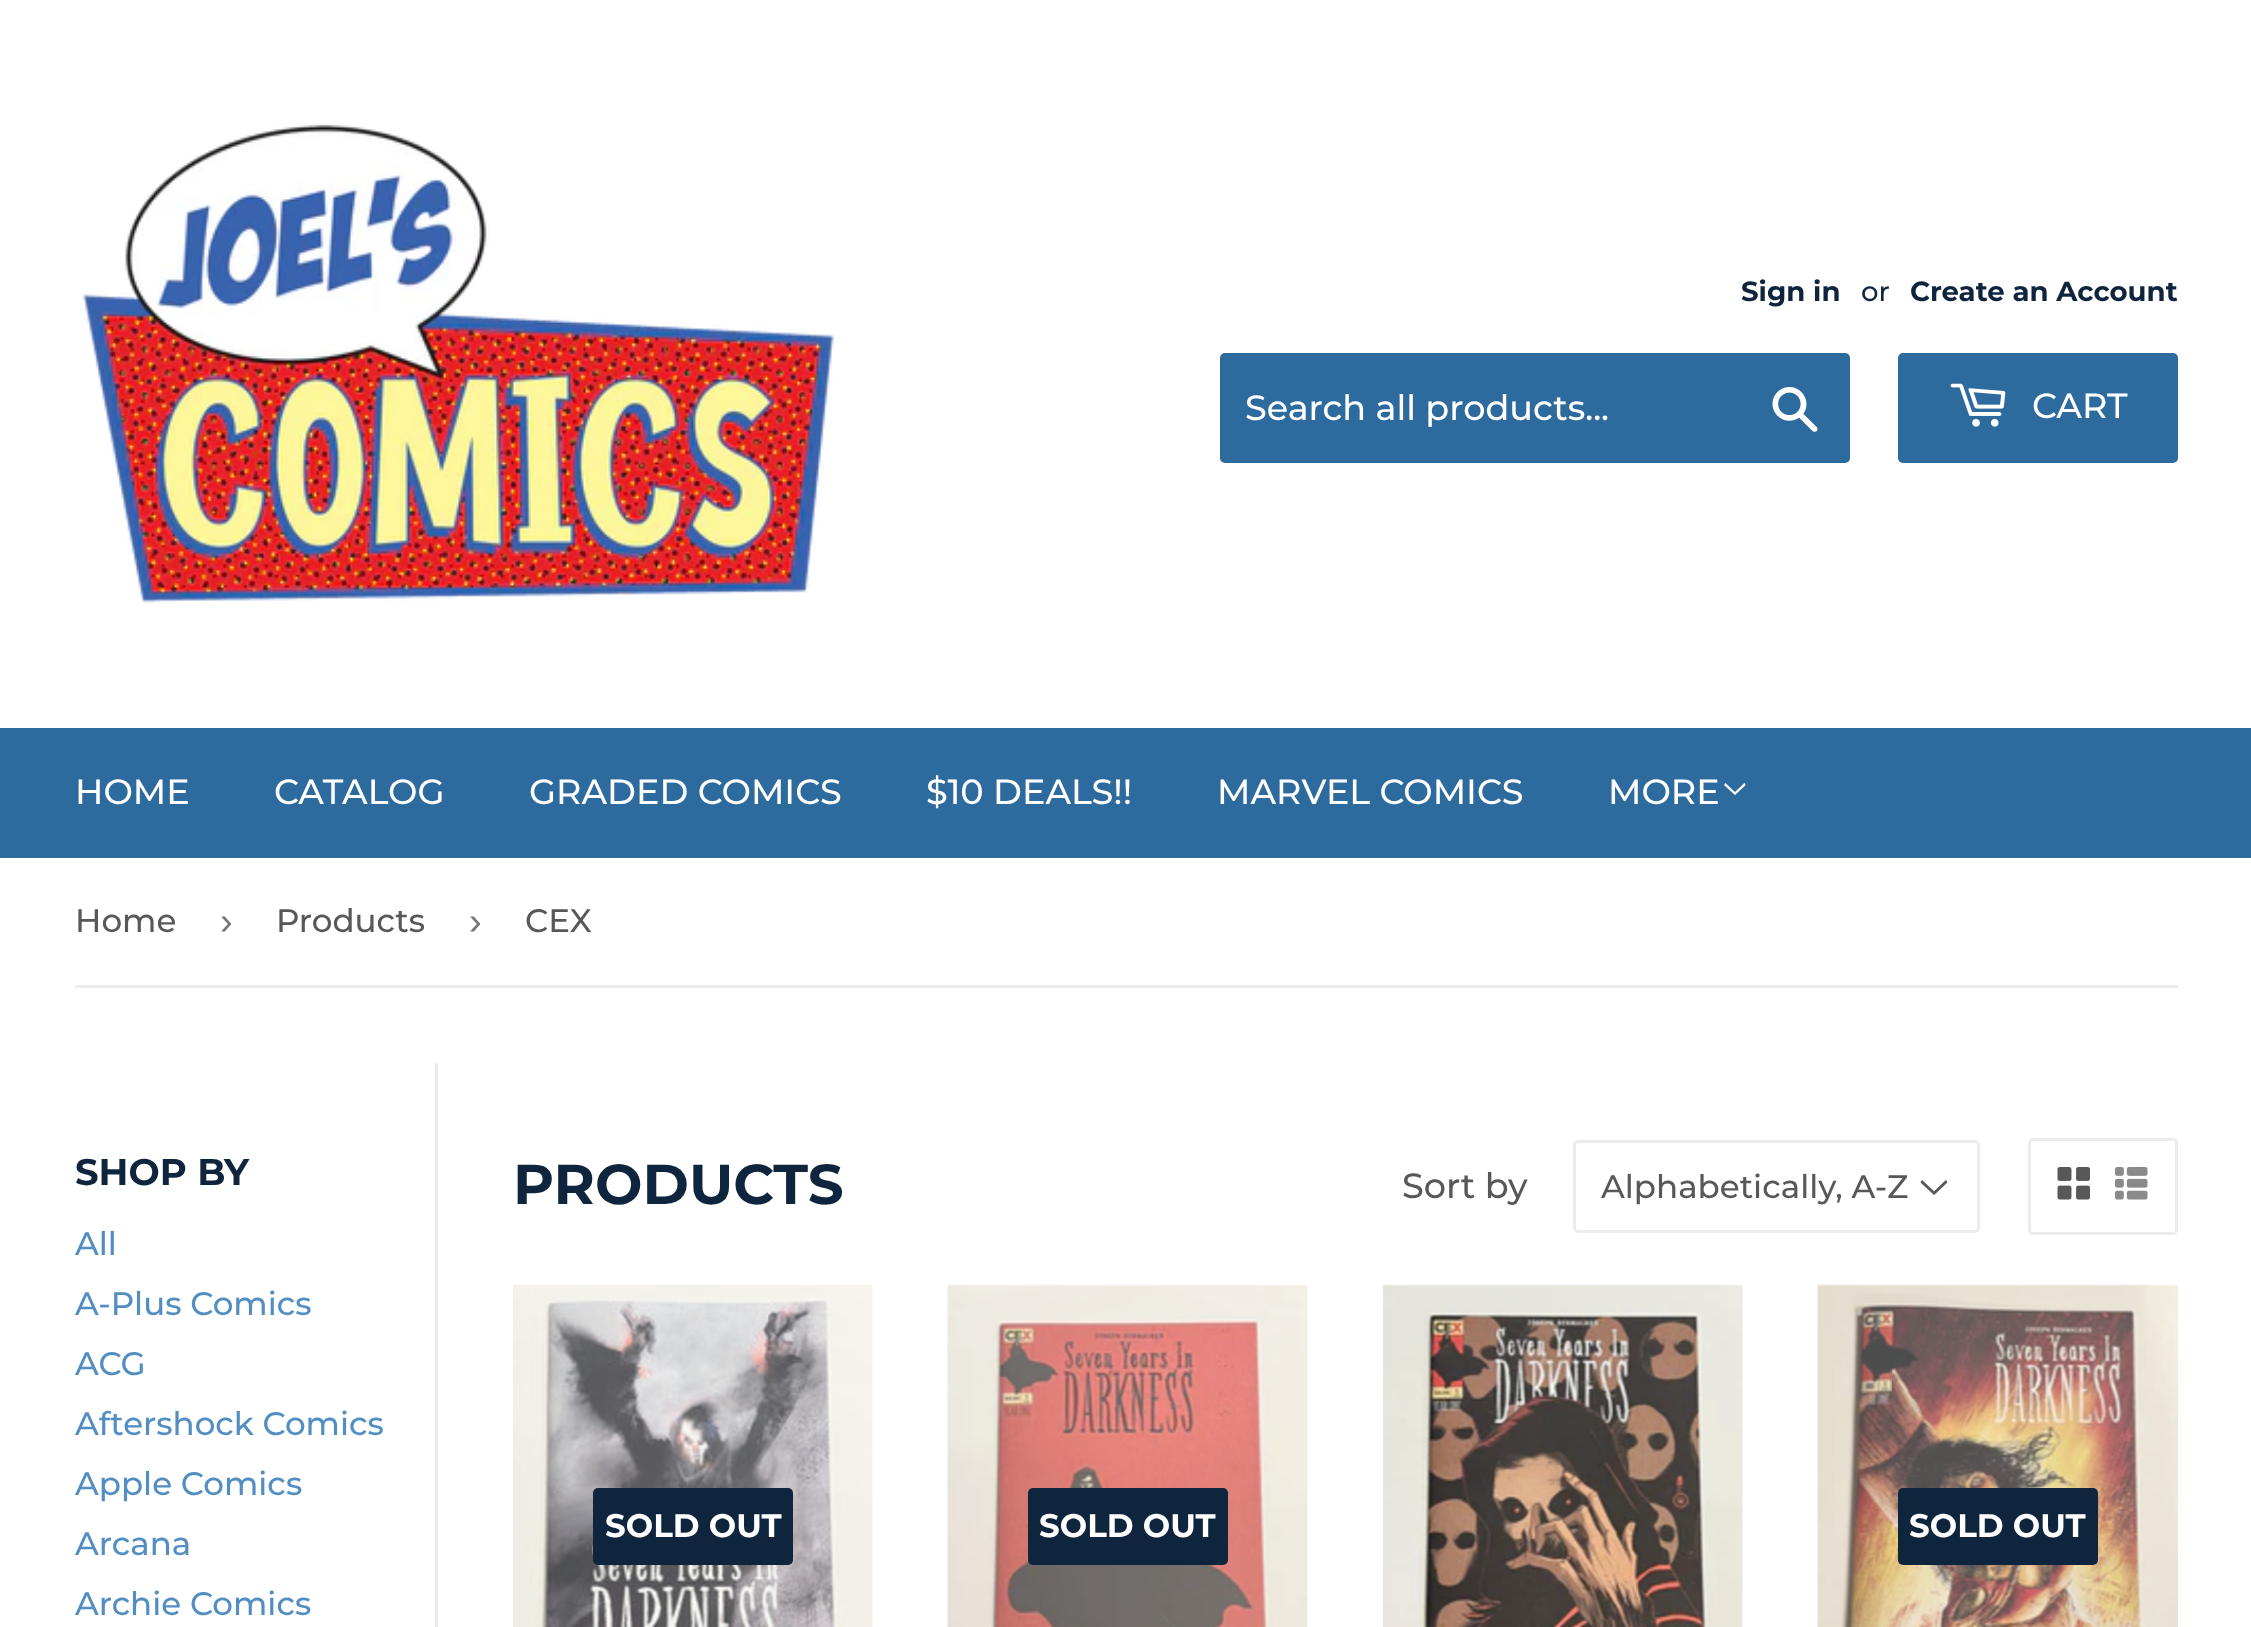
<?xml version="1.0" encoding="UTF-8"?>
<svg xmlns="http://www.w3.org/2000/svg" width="2251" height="1627">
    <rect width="100%" height="100%" fill="#FFFFFF"/>
    <image x="83" y="124" width="751" height="479" href="img_01.png"/>
    <text x="1741" y="301" font-family="Montserrat" font-size="27.6" font-weight="700" fill="#0F243D">Sign in</text>
    <text x="1861" y="301" font-family="Montserrat" font-size="27.6" font-weight="500" fill="#0F243D">or</text>
    <text x="1910" y="301" font-family="Montserrat" font-size="27.6" font-weight="700" fill="#0F243D">Create an Account</text>
    <rect x="1220" y="353" width="630" height="110" rx="5" fill="#2D6A9D"/>
    <text x="1245" y="420" font-family="Montserrat" font-size="35" font-weight="500" fill="#FFFFFF">Search all products...</text>
    <image x="1772" y="387" width="46" height="45" href="img_02.png"/>
    <rect x="1898" y="353" width="280" height="110" rx="5" fill="#2D6A9D"/>
    <image x="1950" y="383" width="56" height="44" href="img_03.png"/>
    <text x="2032" y="418" font-family="Montserrat" font-size="35" font-weight="500" fill="#FFFFFF">CART</text>
    <rect x="0" y="728" width="2251" height="130" fill="#2D6A9D"/>
    <text x="75" y="804" font-family="Montserrat" font-size="35" font-weight="500" fill="#FFFFFF">HOME</text>
    <text x="274" y="804" font-family="Montserrat" font-size="35" font-weight="500" fill="#FFFFFF">CATALOG</text>
    <text x="529" y="804" font-family="Montserrat" font-size="35" font-weight="500" fill="#FFFFFF">GRADED COMICS</text>
    <text x="926" y="804" font-family="Montserrat" font-size="35" font-weight="500" fill="#FFFFFF">$10 DEALS!!</text>
    <text x="1217" y="804" font-family="Montserrat" font-size="35" font-weight="500" fill="#FFFFFF">MARVEL COMICS</text>
    <text x="1608" y="804" font-family="Montserrat" font-size="35" font-weight="500" fill="#FFFFFF">MORE</text>
    <image x="1724" y="783" width="22" height="12" href="img_04.png"/>
    <rect x="75" y="985" width="2103" height="3" fill="#ECECEC"/>
    <text x="75" y="932" font-family="Montserrat" font-size="32.5" font-weight="500" fill="#585858">Home</text>
    <text x="220" y="934" font-family="Liberation Sans" font-size="38" fill="#767676">›</text>
    <text x="276" y="932" font-family="Montserrat" font-size="32.5" font-weight="500" fill="#585858">Products</text>
    <text x="469" y="934" font-family="Liberation Sans" font-size="38" fill="#767676">›</text>
    <text x="525" y="932" font-family="Montserrat" font-size="32.5" font-weight="500" fill="#585858">CEX</text>
    <text x="75" y="1185" font-family="Montserrat" font-size="37" font-weight="700" fill="#0F243D">SHOP BY</text>
    <text font-family="Montserrat" font-size="32.5" font-weight="500" fill="#528EC1">
        <tspan x="75" y="1255">All</tspan>
        <tspan x="75" y="1315">A-Plus Comics</tspan>
        <tspan x="75" y="1375">ACG</tspan>
        <tspan x="75" y="1435">Aftershock Comics</tspan>
        <tspan x="75" y="1495">Apple Comics</tspan>
        <tspan x="75" y="1555">Arcana</tspan>
        <tspan x="75" y="1615">Archie Comics</tspan>
    </text>
    <rect x="435" y="1063" width="3" height="564" fill="#ECECEC"/>
    <text x="513" y="1204" font-family="Montserrat" font-size="56.25" font-weight="700" fill="#0F243D">PRODUCTS</text>
    <text x="1402" y="1198" font-family="Montserrat" font-size="35" font-weight="500" fill="#585858">Sort by</text>
    <image x="1920" y="1180" width="28" height="15" href="img_05.png"/>
    <rect x="1574.5" y="1141.5" width="404" height="90" rx="3.5" fill="none" stroke="#ECECEC" stroke-width="3"/>
    <text x="1601" y="1198" font-family="Montserrat" font-size="32.5" font-weight="500" fill="#585858">Alphabetically, A-Z</text>
    <rect x="2029.5" y="1139.5" width="147" height="94" rx="3.5" fill="none" stroke="#ECECEC" stroke-width="3"/>
    <image x="2057" y="1167" width="33" height="33" href="img_06.png"/>
    <image x="2115" y="1167" width="33" height="33" href="img_07.png"/>
    <image x="513" y="1284" width="360" height="343" href="img_08.png"/>
    <rect x="593" y="1488" width="200" height="77" rx="5" fill="#0F243D"/>
    <text x="605" y="1537" font-family="Montserrat" font-size="32.5" font-weight="700" fill="#FFFFFF">SOLD OUT</text>
    <image x="947" y="1284" width="361" height="343" href="img_09.png"/>
    <rect x="1028" y="1488" width="200" height="77" rx="5" fill="#0F243D"/>
    <text x="1039" y="1537" font-family="Montserrat" font-size="32.5" font-weight="700" fill="#FFFFFF">SOLD OUT</text>
    <image x="1383" y="1284" width="360" height="343" href="img_10.png"/>
    <image x="1817" y="1284" width="361" height="343" href="img_11.png"/>
    <rect x="1898" y="1488" width="200" height="77" rx="5" fill="#0F243D"/>
    <text x="1909" y="1537" font-family="Montserrat" font-size="32.5" font-weight="700" fill="#FFFFFF">SOLD OUT</text>
</svg>
